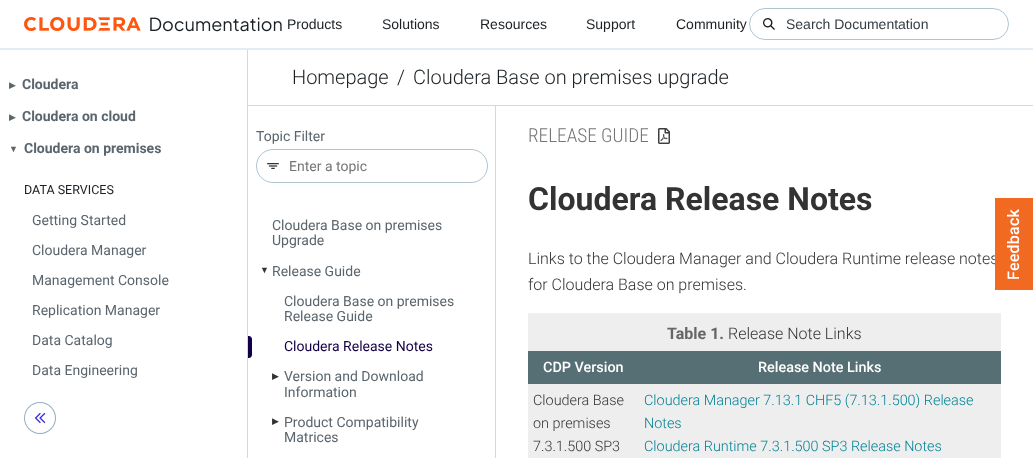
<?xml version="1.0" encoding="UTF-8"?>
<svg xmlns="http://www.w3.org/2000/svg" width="1033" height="458">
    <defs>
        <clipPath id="clip1"><rect x="248" y="105" width="248" height="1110"/></clipPath>
    </defs>
    <rect width="100%" height="100%" fill="#FFFFFF"/>
    <rect x="0" y="48" width="1033" height="2" fill="#E5ECF1"/>
    <image x="24" y="17" width="258" height="15" href="img_01.png"/>
    <text x="287" y="29" font-family="Liberation Sans" font-size="14" fill="#1A2024">Products</text>
    <text x="382" y="29" font-family="Liberation Sans" font-size="14" fill="#1A2024">Solutions</text>
    <text x="480" y="29" font-family="Liberation Sans" font-size="14" fill="#1A2024">Resources</text>
    <text x="586" y="29" font-family="Liberation Sans" font-size="14" fill="#1A2024">Support</text>
    <text x="676" y="29" font-family="Liberation Sans" font-size="14" fill="#1A2024">Community</text>
    <rect x="749.5" y="8.5" width="259" height="31" rx="15.5" fill="none" stroke="#AFC4D2"/>
    <image x="763" y="18" width="12" height="12" href="img_02.png"/>
    <text x="786" y="29" font-family="Liberation Sans" font-size="14" fill="#333D43">Search Documentation</text>
    <rect x="247" y="50" width="1" height="408" fill="#D6D8DB"/>
    <text x="9" y="88" font-family="DejaVu Sans" font-size="9" fill="#5A656D">▶︎</text>
    <text x="22" y="89" font-family="Roboto" font-size="14" font-weight="700" fill="#5A656D">Cloudera</text>
    <text x="9" y="120" font-family="DejaVu Sans" font-size="9" fill="#5A656D">▶︎</text>
    <text x="22" y="121" font-family="Roboto" font-size="14" font-weight="700" fill="#5A656D">Cloudera on cloud</text>
    <text x="9" y="152" font-family="Liberation Sans" font-size="9" fill="#5A656D">▼</text>
    <text x="24" y="153" font-family="Roboto" font-size="14" font-weight="700" fill="#5A656D">Cloudera on premises</text>
    <text x="24" y="194" font-family="Roboto" font-size="12.5" fill="#1A2024">DATA SERVICES</text>
    <text x="32" y="225" font-family="Roboto" font-size="14" fill="#5A656D">Getting Started</text>
    <text x="32" y="255" font-family="Roboto" font-size="14" fill="#5A656D">Cloudera Manager</text>
    <text x="32" y="285" font-family="Roboto" font-size="14" fill="#5A656D">Management Console</text>
    <text x="32" y="315" font-family="Roboto" font-size="14" fill="#5A656D">Replication Manager</text>
    <text x="32" y="345" font-family="Roboto" font-size="14" fill="#5A656D">Data Catalog</text>
    <text x="32" y="375" font-family="Roboto" font-size="14" fill="#5A656D">Data Engineering</text>
    <image x="24" y="402" width="32" height="32" href="img_03.png"/>
    <rect x="496" y="105" width="537" height="1" fill="#D6D8DB"/>
    <text x="292" y="84" font-family="Roboto" font-size="20" font-weight="300" fill="#1A2024">Homepage</text>
    <text x="397" y="84" font-family="Roboto" font-size="20" font-weight="300" fill="#1A2024">/</text>
    <text x="413" y="84" font-family="Roboto" font-size="20" font-weight="300" fill="#1A2024">Cloudera Base on premises upgrade</text>
    <text x="528" y="142" font-family="Roboto Condensed" font-size="19.25" font-weight="300" fill="#757575">RELEASE GUIDE</text>
    <image x="658" y="128" width="12" height="16" href="img_04.png"/>
    <text x="528" y="210" font-family="Roboto" font-size="32" font-weight="700" fill="#333333">Cloudera Release Notes</text>
    <text font-family="Roboto" font-size="16" font-weight="300" fill="#333333">
        <tspan x="528" y="264">Links to the Cloudera Manager and Cloudera Runtime release notes</tspan>
        <tspan x="528" y="290">for Cloudera Base on premises.</tspan>
    </text>
    <rect x="528" y="313" width="473" height="145" fill="#EEEEEE"/>
    <text x="667" y="339" font-family="Roboto" font-size="16" font-weight="700" fill="#666666">Table 1.</text>
    <text x="728" y="339" font-family="Roboto" font-size="16" font-weight="300" fill="#333333">Release Note Links</text>
    <rect x="528" y="351" width="473" height="33" fill="#556F74"/>
    <text x="543" y="372" font-family="Roboto" font-size="14.4" font-weight="500" fill="#FFFFFF">CDP Version</text>
    <text x="758" y="372" font-family="Roboto" font-size="14.4" font-weight="500" fill="#FFFFFF">Release Note Links</text>
    <text font-family="Roboto" font-size="14.4" font-weight="300" fill="#333333">
        <tspan x="533" y="405">Cloudera Base</tspan>
        <tspan x="533" y="428">on premises</tspan>
        <tspan x="533" y="451">7.3.1.500 SP3</tspan>
    </text>
    <text font-family="Roboto" font-size="14.4" font-weight="300" fill="#008295">
        <tspan x="644" y="405">Cloudera Manager 7.13.1 CHF5 (7.13.1.500) Release</tspan>
        <tspan x="644" y="428">Notes</tspan>
        <tspan x="644" y="451">Cloudera Runtime 7.3.1.500 SP3 Release Notes</tspan>
    </text>
    <g clip-path="url(#clip1)">
        <path d="M 149 6 H 595 V 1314 H 149 Z M 247 106 H 495 V 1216 H 247 Z" fill="#D6D8DB" fill-rule="evenodd"/>
    </g>
    <text x="256" y="141" font-family="Roboto" font-size="14" fill="#5A656D">Topic Filter</text>
    <rect x="256.5" y="149.5" width="231" height="33" rx="16.5" fill="none" stroke="#AFC4D2"/>
    <image x="267" y="163" width="12" height="6" href="img_05.png"/>
    <text x="289" y="171" font-family="Roboto" font-size="14" fill="#757575">Enter a topic</text>
    <text font-family="Roboto" font-size="14" fill="#5A656D">
        <tspan x="272" y="230">Cloudera Base on premises</tspan>
        <tspan x="272" y="245">Upgrade</tspan>
    </text>
    <text x="260" y="273" font-family="Liberation Sans" font-size="9" fill="#333333">▼</text>
    <text x="272" y="276" font-family="Roboto" font-size="14" fill="#5A656D">Release Guide</text>
    <text font-family="Roboto" font-size="14" fill="#5A656D">
        <tspan x="284" y="306">Cloudera Base on premises</tspan>
        <tspan x="284" y="321">Release Guide</tspan>
    </text>
    <path d="M 248 336 H 249 C 250.5 336 252 337.5 252 339 V 355 C 252 356.5 250.5 358 249 358 H 248 Z" fill="#120046"/>
    <text x="284" y="351" font-family="Roboto" font-size="14" fill="#120046">Cloudera Release Notes</text>
    <text x="272" y="379" font-family="DejaVu Sans" font-size="9" fill="#333333">▶︎</text>
    <text font-family="Roboto" font-size="14" fill="#5A656D">
        <tspan x="284" y="381">Version and Download</tspan>
        <tspan x="284" y="397">Information</tspan>
    </text>
    <text x="272" y="424" font-family="DejaVu Sans" font-size="9" fill="#333333">▶︎</text>
    <text font-family="Roboto" font-size="14" fill="#5A656D">
        <tspan x="284" y="427">Product Compatibility</tspan>
        <tspan x="284" y="442">Matrices</tspan>
    </text>
    <rect x="995" y="198" width="38" height="92" fill="#F26922"/>
    <text x="1019" y="280" transform="rotate(-90 1019 280)" font-family="Roboto" font-size="16" font-weight="500" letter-spacing="0.25" fill="#FFFFFF">Feedback</text>
</svg>
